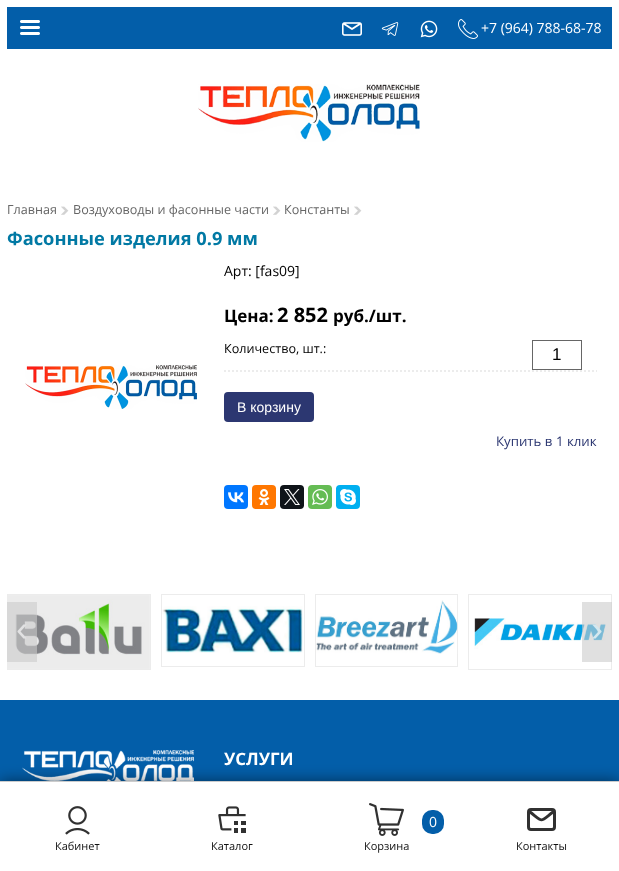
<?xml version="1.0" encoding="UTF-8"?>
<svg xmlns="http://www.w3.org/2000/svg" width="619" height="871">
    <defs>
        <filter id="blur1" x="-50%" y="-200%" width="200%" height="500%"><feGaussianBlur stdDeviation="7.5"/></filter>
    </defs>
    <rect width="100%" height="100%" fill="#FFFFFF"/>
    <rect x="7" y="7" width="605" height="42" fill="#035EA9"/>
    <image x="20" y="20" width="20" height="15" href="img_01.png"/>
    <image x="342" y="22" width="20" height="14" href="img_02.png"/>
    <image x="381" y="22" width="18" height="14" href="img_03.png"/>
    <image x="420" y="20" width="18" height="18" href="img_04.png"/>
    <image x="458" y="19" width="20" height="20" href="img_05.png"/>
    <text x="481" y="33" font-family="Open Sans" font-size="14" fill="#FFFFFF">+7 (964) 788-68-78</text>
    <image x="198" y="84" width="222" height="58" href="img_06.png"/>
    <text x="7" y="214" font-family="Open Sans" font-size="12.6" fill="#666666">Главная</text>
    <image x="61" y="206" width="8" height="9" href="img_07.png"/>
    <text x="73" y="214" font-family="Open Sans" font-size="12.6" fill="#666666">Воздуховоды и фасонные части</text>
    <image x="273" y="206" width="8" height="9" href="img_07.png"/>
    <text x="284" y="214" font-family="Open Sans" font-size="12.6" fill="#666666">Константы</text>
    <image x="354" y="206" width="8" height="9" href="img_07.png"/>
    <text x="7" y="245" font-family="Open Sans" font-size="18.25" font-weight="700" fill="#0179A4">Фасонные изделия 0.9 мм</text>
    <text x="224" y="276" font-family="Open Sans" font-size="14" fill="#000000">Арт: [fas09]</text>
    <image x="25" y="365" width="172" height="44" href="img_08.png"/>
    <text x="224" y="322" font-family="Open Sans" font-size="17" font-weight="700" fill="#000000">Цена:</text>
    <text x="277" y="322" font-family="Open Sans" font-size="20" font-weight="700" fill="#000000">2 852</text>
    <text x="333" y="322" font-family="Open Sans" font-size="17" font-weight="700" fill="#000000">руб./шт.</text>
    <path d="M 224 371 H 597" fill="none" stroke="#ECECEC" stroke-width="2" stroke-dasharray="2 2"/>
    <text x="224" y="353" font-family="Open Sans" font-size="12.6" fill="#000000">Количество, шт.:</text>
    <rect x="532.5" y="340.5" width="49" height="29" fill="none" stroke="#666666"/>
    <text x="552" y="360" font-family="Liberation Sans" font-size="17" fill="#000000">1</text>
    <rect x="224" y="392" width="90" height="30" rx="4" fill="#2C3771"/>
    <text x="237" y="412" font-family="Liberation Sans" font-size="14" fill="#FFFFFF">В корзину</text>
    <text x="496" y="446" font-family="Open Sans" font-size="13.25" fill="#2C3771">Купить в 1 клик</text>
    <rect x="224" y="485" width="24" height="24" rx="4" fill="#0077FF"/>
    <image x="228" y="492" width="16" height="11" href="img_09.png"/>
    <rect x="252" y="485" width="24" height="24" rx="4" fill="#FF7700"/>
    <image x="258" y="489" width="12" height="16" href="img_10.png"/>
    <rect x="280" y="485" width="24" height="24" rx="4" fill="#0F1419"/>
    <image x="284" y="489" width="16" height="16" href="img_11.png"/>
    <rect x="308" y="485" width="24" height="24" rx="4" fill="#65BC54"/>
    <image x="312" y="489" width="16" height="16" href="img_12.png"/>
    <rect x="336" y="485" width="24" height="24" rx="4" fill="#00AFF0"/>
    <image x="340" y="489" width="16" height="16" href="img_13.png"/>
    <rect x="7.5" y="594.5" width="143" height="75" fill="none" stroke="#ECECEC"/>
    <image x="8" y="595" width="142" height="74" href="img_14.png"/>
    <rect x="161.5" y="594.5" width="143" height="72" fill="none" stroke="#ECECEC"/>
    <image x="162" y="606" width="141" height="47" href="img_15.png"/>
    <rect x="315.5" y="594.5" width="142" height="72" fill="none" stroke="#ECECEC"/>
    <image x="316" y="600" width="142" height="54" href="img_16.png"/>
    <rect x="468.5" y="594.5" width="143" height="75" fill="none" stroke="#ECECEC"/>
    <image x="474" y="618" width="132" height="31" href="img_17.png"/>
    <rect x="7" y="602" width="30" height="60" fill="#CCCCCC" fill-opacity="0.6"/>
    <text x="16" y="641" font-family="Liberation Sans" font-size="36" fill="#E1E1E2">‹</text>
    <rect x="582" y="602" width="30" height="60" fill="#CCCCCC" fill-opacity="0.6"/>
    <text x="591" y="641" font-family="Liberation Sans" font-size="36" fill="#D5E8EF">›</text>
    <rect x="0" y="700" width="619" height="81" fill="#035EA9"/>
    <image x="22" y="750" width="172" height="31" href="img_18.png"/>
    <text x="224" y="765" font-family="Open Sans" font-size="17" font-weight="700" fill="#FFFFFF">УСЛУГИ</text>
    <rect x="0" y="781" width="619" height="90" fill="#000000" fill-opacity="0.5" filter="url(#blur1)"/>
    <rect x="0" y="782" width="619" height="89" fill="#FFFFFF"/>
    <rect x="0" y="781" width="619" height="1" fill="#CCCCCC"/>
    <image x="65" y="806" width="25" height="29" href="img_19.png"/>
    <text x="55" y="850" font-family="Open Sans" font-size="11" fill="#111111">Кабинет</text>
    <image x="218" y="806" width="28" height="27" href="img_20.png"/>
    <text x="211" y="850" font-family="Open Sans" font-size="11" fill="#111111">Каталог</text>
    <image x="369" y="803" width="35" height="33" href="img_21.png"/>
    <rect x="422" y="810" width="22" height="24" rx="10" fill="#035EA9"/>
    <text x="429" y="827" font-family="Open Sans" font-size="14" fill="#FFFFFF">0</text>
    <text x="364" y="850" font-family="Open Sans" font-size="11" fill="#111111">Корзина</text>
    <path d="M 530 812 C 543.5 822.5 539.5 822.5 553 812" fill="none" stroke="#313131" stroke-width="2.9" stroke-linecap="round" stroke-linejoin="round"/>
    <rect x="528.5" y="809.5" width="26" height="20" rx="2.5" fill="none" stroke="#313131" stroke-width="3"/>
    <text x="516" y="850" font-family="Open Sans" font-size="11" fill="#111111">Контакты</text>
</svg>
